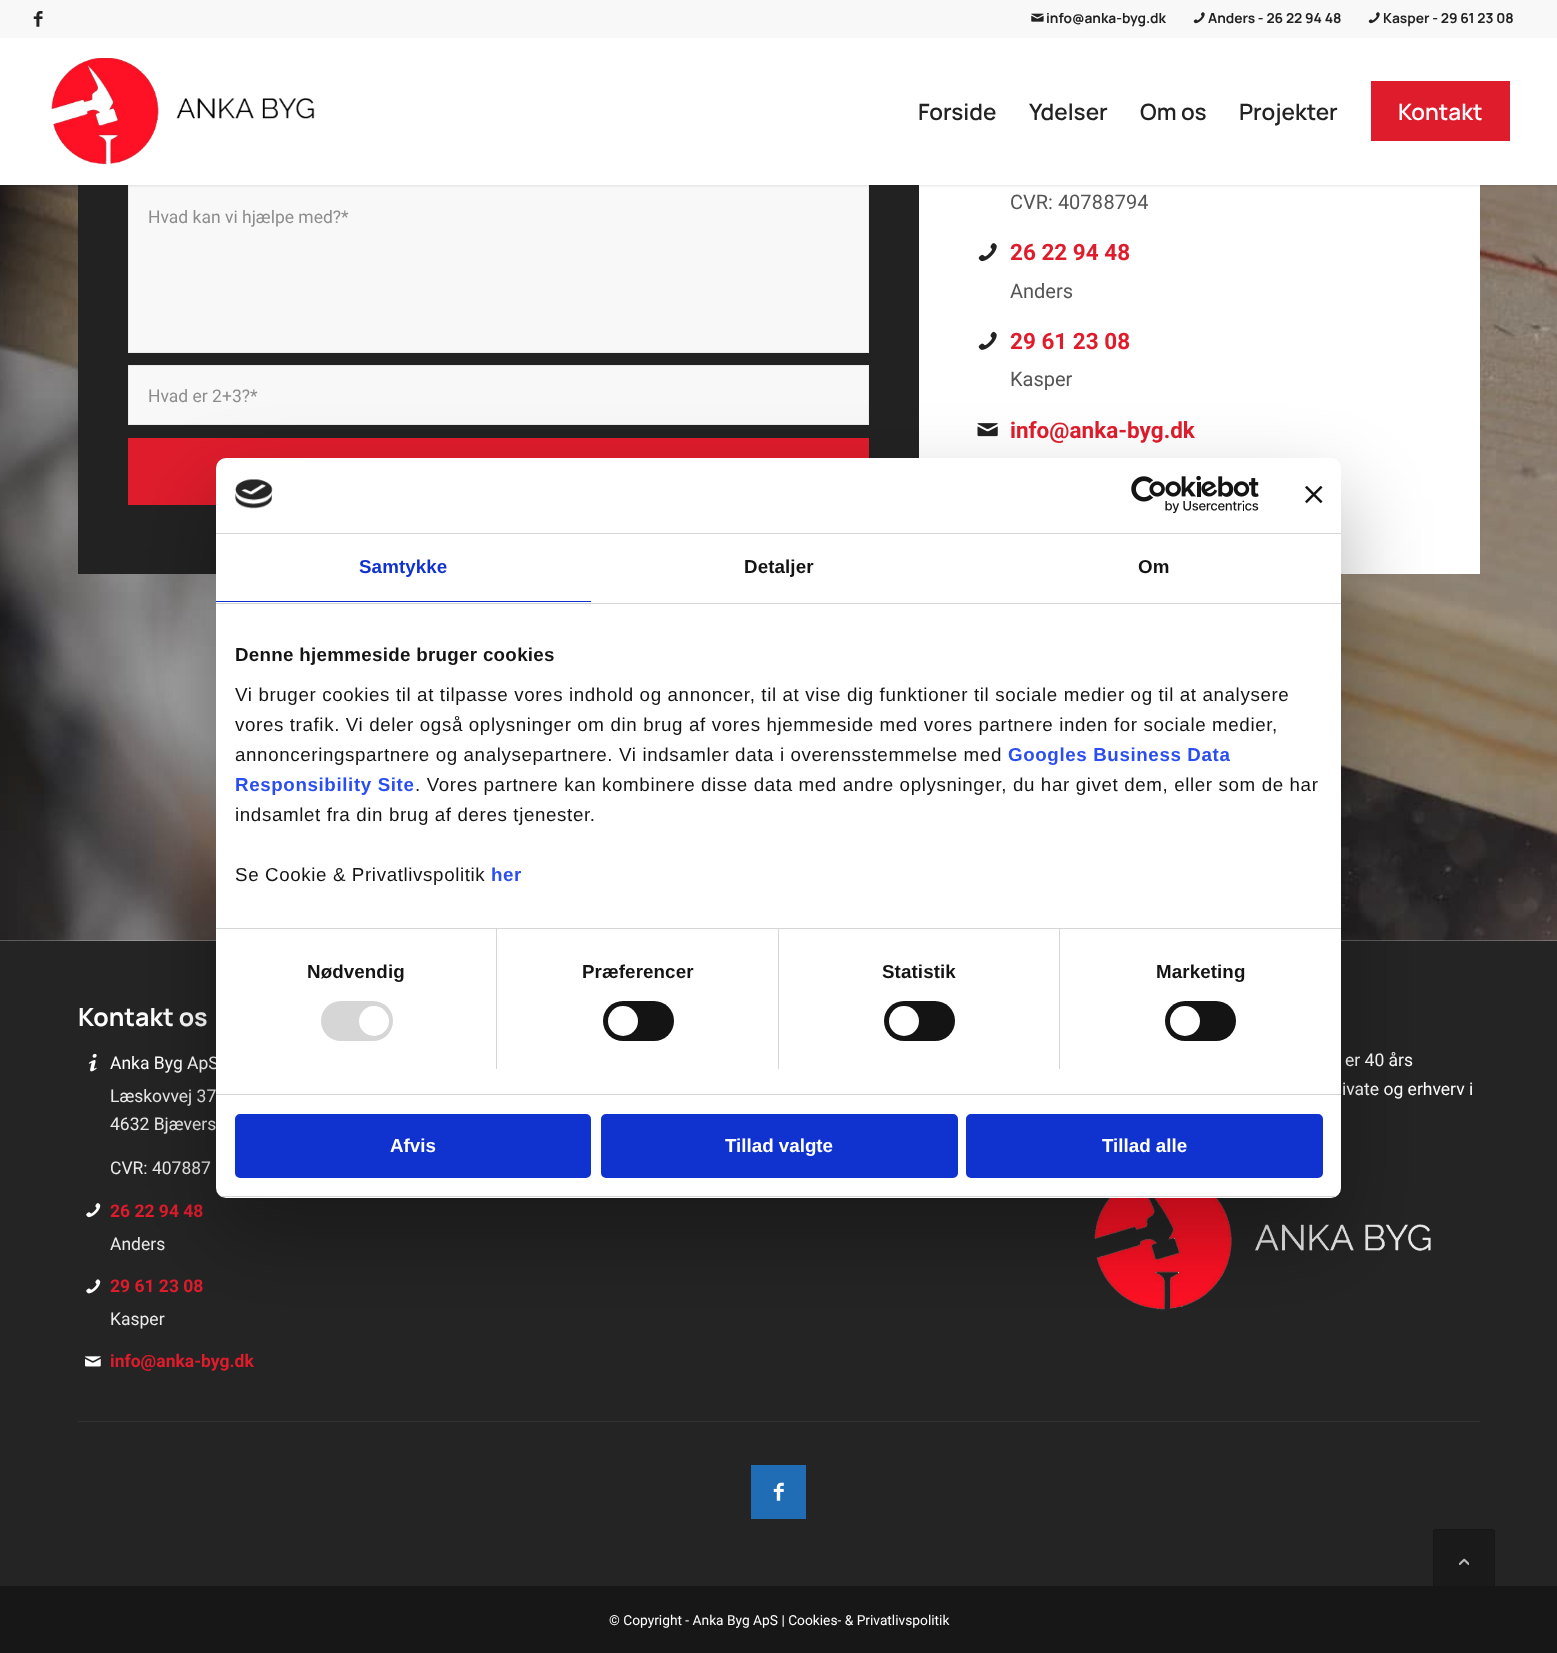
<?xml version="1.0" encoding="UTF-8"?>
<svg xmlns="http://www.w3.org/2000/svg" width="1557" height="1653">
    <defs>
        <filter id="blur1" x="-50%" y="-200%" width="200%" height="500%"><feGaussianBlur stdDeviation="1"/></filter>
        <filter id="blur2" x="-50%" y="-200%" width="200%" height="500%"><feGaussianBlur stdDeviation="42.5"/></filter>
        <clipPath id="clip1"><rect x="216" y="458" width="1125" height="740" rx="10"/></clipPath>
    </defs>
    <rect width="100%" height="100%" fill="#FFFFFF"/>
    <image x="0" y="185" width="1557" height="756" href="img_05.png"/>
    <rect x="78" y="185" width="841" height="389" fill="#222222"/>
    <rect x="128.5" y="184.5" width="740" height="168" fill="#F8F8F8" stroke="#EBEBEB"/>
    <rect x="919" y="185" width="561" height="389" fill="#FFFFFF"/>
    <rect x="-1" y="-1" width="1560" height="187" fill="#000000" fill-opacity="0.1" filter="url(#blur1)"/>
    <rect x="0" y="0" width="1557" height="38" fill="#F8F8F8"/>
    <image x="33" y="11" width="10" height="16" href="img_01.png"/>
    <image x="1031" y="13" width="13" height="9" href="img_02.png"/>
    <text x="1046" y="23" font-family="Manrope" font-size="13.75" font-weight="700" fill="#222222">info@anka-byg.dk</text>
    <image x="1193" y="12" width="12" height="12" href="img_03.png"/>
    <text x="1208" y="23" font-family="Manrope" font-size="13.75" font-weight="700" fill="#222222">Anders - 26 22 94 48</text>
    <image x="1368" y="12" width="12" height="12" href="img_03.png"/>
    <text x="1383" y="23" font-family="Manrope" font-size="13.75" font-weight="700" fill="#222222">Kasper - 29 61 23 08</text>
    <rect x="0" y="38" width="1557" height="147" fill="#FFFFFF"/>
    <image x="51" y="58" width="264" height="107" href="img_04.png"/>
    <text x="918" y="120" font-family="Manrope" font-size="22.5" font-weight="600" fill="#222222">Forside</text>
    <text x="1029" y="120" font-family="Manrope" font-size="22.5" font-weight="600" fill="#222222">Ydelser</text>
    <text x="1140" y="120" font-family="Manrope" font-size="22.5" font-weight="600" fill="#222222">Om os</text>
    <text x="1239" y="120" font-family="Manrope" font-size="22.5" font-weight="600" fill="#222222">Projekter</text>
    <rect x="1371" y="81" width="139" height="60" fill="#DF1C2C"/>
    <text x="1398" y="120" font-family="Manrope" font-size="22.5" font-weight="600" fill="#FFFFFF">Kontakt</text>
    <text x="148" y="223" font-family="Roboto" font-size="17.5" fill="#8D8D8D">Hvad kan vi hjælpe med?*</text>
    <rect x="128.5" y="365.5" width="740" height="59" fill="#F8F8F8" stroke="#EBEBEB"/>
    <text x="148" y="402" font-family="Roboto" font-size="17.5" fill="#8D8D8D">Hvad er 2+3?*</text>
    <rect x="128" y="438" width="741" height="67" fill="#DF1C2C"/>
    <text x="1010" y="209" font-family="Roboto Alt" font-size="20" fill="#555555">CVR: 40788794</text>
    <image x="978" y="243" width="19" height="19" href="img_06.png"/>
    <text x="1010" y="260" font-family="Roboto" font-size="22.5" font-weight="700" fill="#DF1C2C">26 22 94 48</text>
    <text x="1010" y="298" font-family="Roboto" font-size="20" fill="#555555">Anders</text>
    <image x="978" y="331" width="19" height="19" href="img_07.png"/>
    <text x="1010" y="349" font-family="Roboto" font-size="22.5" font-weight="700" fill="#DF1C2C">29 61 23 08</text>
    <text x="1010" y="386" font-family="Roboto" font-size="20" fill="#555555">Kasper</text>
    <image x="977" y="423" width="21" height="14" href="img_08.png"/>
    <text x="1010" y="438" font-family="Roboto" font-size="22.5" font-weight="700" fill="#DF1C2C">info@anka-byg.dk</text>
    <rect x="0" y="941" width="1557" height="645" fill="#242424"/>
    <text x="78" y="1026" font-family="Manrope" font-size="25" font-weight="700" fill="#FFFFFF">Kontakt os</text>
    <image x="88" y="1053" width="9" height="19" href="img_09.png"/>
    <text x="110" y="1069" font-family="Roboto" font-size="17.5" fill="#FFFFFF">Anka Byg ApS</text>
    <text font-family="Roboto" font-size="17.5" fill="#EAEAEA">
        <tspan x="110" y="1102">Læskovvej 37</tspan>
        <tspan x="110" y="1130">4632 Bjævers</tspan>
    </text>
    <text x="110" y="1174" font-family="Roboto" font-size="17.5" fill="#EAEAEA">CVR: 407887</text>
    <image x="86" y="1203" width="15" height="15" href="img_10.png"/>
    <text x="110" y="1217" font-family="Roboto" font-size="17.5" font-weight="700" fill="#DF1C2C">26 22 94 48</text>
    <text x="110" y="1250" font-family="Roboto" font-size="17.5" fill="#EAEAEA">Anders</text>
    <image x="86" y="1279" width="15" height="15" href="img_11.png"/>
    <text x="110" y="1292" font-family="Roboto" font-size="17.5" font-weight="700" fill="#DF1C2C">29 61 23 08</text>
    <text x="110" y="1325" font-family="Roboto" font-size="17.5" fill="#EAEAEA">Kasper</text>
    <image x="85" y="1356" width="16" height="11" href="img_12.png"/>
    <text x="110" y="1367" font-family="Roboto" font-size="17.5" font-weight="700" fill="#DF1C2C">info@anka-byg.dk</text>
    <text x="1345" y="1066" font-family="Roboto" font-size="17.5" fill="#FFFFFF">er 40 års</text>
    <text x="1342" y="1095" font-family="Roboto" font-size="17.5" fill="#FFFFFF">ivate og erhverv i</text>
    <image x="1094" y="1198" width="337" height="113" href="img_13.png"/>
    <rect x="78" y="1421" width="1402" height="1" fill="#333333"/>
    <rect x="751" y="1465" width="55" height="54" fill="#206DB5"/>
    <image x="773" y="1482" width="11" height="19" href="img_14.png"/>
    <rect x="216" y="498" width="1125" height="740" rx="10" fill="#000000" fill-opacity="0.3" filter="url(#blur2)"/>
    <rect x="216" y="458" width="1125" height="740" rx="10" fill="#FFFFFF"/>
    <rect x="216" y="533" width="1125" height="1" fill="#D6D6D6"/>
    <image x="235" y="479" width="38" height="30" href="img_15.png"/>
    <image x="1131" y="476" width="128" height="38" href="img_16.png"/>
    <image x="1305" y="486" width="18" height="18" href="img_17.png"/>
    <rect x="216" y="603" width="1125" height="1" fill="#D6D6D6"/>
    <rect x="216" y="601" width="375" height="1" fill="#1032CF"/>
    <text x="359" y="573" font-family="Liberation Sans" font-size="18.75" font-weight="700" letter-spacing="0.1" fill="#1032CF">Samtykke</text>
    <text x="744" y="573" font-family="Liberation Sans" font-size="18.75" font-weight="700" letter-spacing="0.1" fill="#141414">Detaljer</text>
    <text x="1138" y="573" font-family="Liberation Sans" font-size="18.75" font-weight="700" letter-spacing="0.1" fill="#141414">Om</text>
    <rect x="216" y="928" width="1125" height="1" fill="#D6D6D6"/>
    <text x="235" y="661" font-family="Liberation Sans" font-size="18.75" font-weight="700" letter-spacing="0.3" fill="#141414">Denne hjemmeside bruger cookies</text>
    <text font-family="Liberation Sans" font-size="18.75" letter-spacing="0.62" fill="#141414">
        <tspan x="235" y="701">Vi bruger cookies til at tilpasse vores indhold og annoncer, til at vise dig funktioner til sociale medier og til at analysere</tspan>
        <tspan x="235" y="731">vores trafik. Vi deler også oplysninger om din brug af vores hjemmeside med vores partnere inden for sociale medier,</tspan>
        <tspan x="235" y="761">annonceringspartnere og analysepartnere. Vi indsamler data i overensstemmelse med</tspan>
    </text>
    <text x="1008" y="761" font-family="Liberation Sans" font-size="18.75" font-weight="700" letter-spacing="0.62" fill="#2A4EEF">Googles Business Data</text>
    <text x="235" y="791" font-family="Liberation Sans" font-size="18.75" font-weight="700" letter-spacing="0.62" fill="#2A4EEF">Responsibility Site</text>
    <text x="415" y="791" font-family="Liberation Sans" font-size="18.75" letter-spacing="0.62" fill="#141414">. Vores partnere kan kombinere disse data med andre oplysninger, du har givet dem, eller som de har</text>
    <text x="235" y="821" font-family="Liberation Sans" font-size="18.75" letter-spacing="0.62" fill="#141414">indsamlet fra din brug af deres tjenester.</text>
    <text x="235" y="881" font-family="Liberation Sans" font-size="18.75" letter-spacing="0.62" fill="#141414">Se Cookie &amp; Privatlivspolitik</text>
    <text x="491" y="881" font-family="Liberation Sans" font-size="18.75" font-weight="700" letter-spacing="0.62" fill="#2A4EEF">her</text>
    <rect x="216" y="1094" width="1125" height="1" fill="#D6D6D6"/>
    <rect x="496" y="929" width="1" height="140" fill="#D6D6D6"/>
    <text x="307" y="978" font-family="Liberation Sans" font-size="18.75" font-weight="700" letter-spacing="0.1" fill="#141414">Nødvendig</text>
    <rect x="321" y="1001" width="72" height="40" rx="20" fill="#D6D6D6"/>
    <circle cx="374" cy="1021" r="15" fill="#FFFFFF"/>
    <rect x="778" y="929" width="1" height="140" fill="#D6D6D6"/>
    <text x="582" y="978" font-family="Liberation Sans" font-size="18.75" font-weight="700" letter-spacing="0.1" fill="#141414">Præferencer</text>
    <rect x="603" y="1001" width="71" height="40" rx="20" fill="#141414"/>
    <circle cx="623" cy="1021" r="15" fill="#FFFFFF"/>
    <rect x="1059" y="929" width="1" height="140" fill="#D6D6D6"/>
    <text x="882" y="978" font-family="Liberation Sans" font-size="18.75" font-weight="700" letter-spacing="0.1" fill="#141414">Statistik</text>
    <rect x="884" y="1001" width="71" height="40" rx="20" fill="#141414"/>
    <circle cx="904" cy="1021" r="15" fill="#FFFFFF"/>
    <text x="1156" y="978" font-family="Liberation Sans" font-size="18.75" font-weight="700" letter-spacing="0.1" fill="#141414">Marketing</text>
    <rect x="1165" y="1001" width="71" height="40" rx="20" fill="#141414"/>
    <circle cx="1185" cy="1021" r="15" fill="#FFFFFF"/>
    <g clip-path="url(#clip1)">
        <rect x="216" y="1196" width="1125" height="1" fill="#D6D6D6"/>
    </g>
    <rect x="236.5" y="1115.5" width="353" height="61" rx="3.5" fill="#1032CF" stroke="#1032CF" stroke-width="3"/>
    <text x="390" y="1152" font-family="Liberation Sans" font-size="18.75" font-weight="700" fill="#FFFFFF">Afvis</text>
    <rect x="602.5" y="1115.5" width="354" height="61" rx="3.5" fill="#1032CF" stroke="#1032CF" stroke-width="3"/>
    <text x="725" y="1152" font-family="Liberation Sans" font-size="18.75" font-weight="700" fill="#FFFFFF">Tillad valgte</text>
    <rect x="967.5" y="1115.5" width="354" height="61" rx="3.5" fill="#1032CF" stroke="#1032CF" stroke-width="3"/>
    <text x="1102" y="1152" font-family="Liberation Sans" font-size="18.75" font-weight="700" fill="#FFFFFF">Tillad alle</text>
    <rect x="0" y="1586" width="1557" height="67" fill="#171717"/>
    <rect x="1433" y="1529" width="62" height="62" rx="2.5" fill="#171717" fill-opacity="0.7"/>
    <rect x="1433.5" y="1529.5" width="61" height="61" rx="2" fill="none" stroke="#171717" stroke-opacity="0.7"/>
    <image x="1459" y="1558" width="10" height="7" href="img_18.png"/>
    <text x="609" y="1625" font-family="Roboto" font-size="13.75" fill="#FFFFFF">© Copyright - Anka Byg ApS | Cookies- &amp; Privatlivspolitik</text>
</svg>
